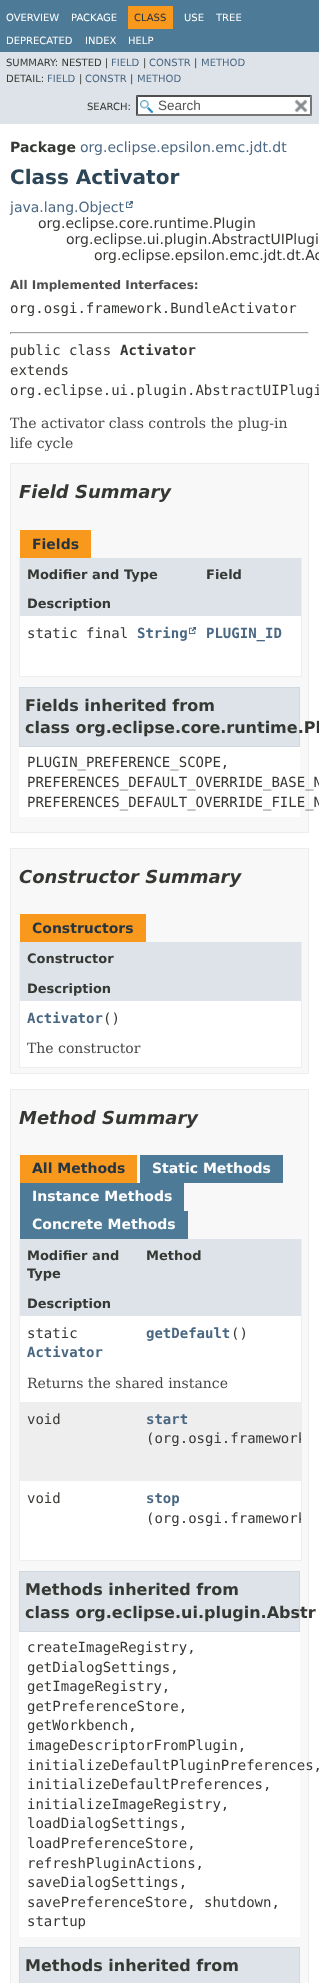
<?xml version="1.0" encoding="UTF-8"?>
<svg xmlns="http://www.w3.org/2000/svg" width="319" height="1983">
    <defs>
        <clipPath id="clip1"><rect x="139" y="1402" width="162" height="50"/></clipPath>
        <clipPath id="clip2"><rect x="139" y="1481" width="162" height="50"/></clipPath>
    </defs>
    <rect width="100%" height="100%" fill="#FFFFFF"/>
    <rect x="0" y="0" width="319" height="52" fill="#4D7A97"/>
    <text x="6" y="21" font-family="DejaVu Sans" font-size="10" fill="#FFFFFF">OVERVIEW</text>
    <text x="71" y="21" font-family="DejaVu Sans" font-size="10" fill="#FFFFFF">PACKAGE</text>
    <rect x="128" y="6" width="45" height="23" fill="#F8981D"/>
    <text x="134" y="21" font-family="DejaVu Sans" font-size="10" fill="#253441">CLASS</text>
    <text x="184" y="21" font-family="DejaVu Sans" font-size="10" fill="#FFFFFF">USE</text>
    <text x="216" y="21" font-family="DejaVu Sans" font-size="10" fill="#FFFFFF">TREE</text>
    <text x="6" y="44" font-family="DejaVu Sans" font-size="10" fill="#FFFFFF">DEPRECATED</text>
    <text x="85" y="44" font-family="DejaVu Sans" font-size="10" fill="#FFFFFF">INDEX</text>
    <text x="128" y="44" font-family="DejaVu Sans" font-size="10" fill="#FFFFFF">HELP</text>
    <rect x="0" y="52" width="319" height="72" fill="#DEE3E9"/>
    <text x="6" y="66" font-family="DejaVu Sans" font-size="10" fill="#353833">SUMMARY: NESTED |</text>
    <text x="111" y="66" font-family="DejaVu Sans" font-size="10" fill="#4A6782">FIELD</text>
    <text x="143" y="66" font-family="DejaVu Sans" font-size="10" fill="#353833">|</text>
    <text x="149" y="66" font-family="DejaVu Sans" font-size="10" fill="#4A6782">CONSTR</text>
    <text x="194" y="66" font-family="DejaVu Sans" font-size="10" fill="#353833">|</text>
    <text x="201" y="66" font-family="DejaVu Sans" font-size="10" fill="#4A6782">METHOD</text>
    <text x="6" y="82" font-family="DejaVu Sans" font-size="10" fill="#353833">DETAIL:</text>
    <text x="47" y="82" font-family="DejaVu Sans" font-size="10" fill="#4A6782">FIELD</text>
    <text x="79" y="82" font-family="DejaVu Sans" font-size="10" fill="#353833">|</text>
    <text x="85" y="82" font-family="DejaVu Sans" font-size="10" fill="#4A6782">CONSTR</text>
    <text x="130" y="82" font-family="DejaVu Sans" font-size="10" fill="#353833">|</text>
    <text x="137" y="82" font-family="DejaVu Sans" font-size="10" fill="#4A6782">METHOD</text>
    <text x="87" y="110" font-family="DejaVu Sans" font-size="10" fill="#353833">SEARCH:</text>
    <rect x="136" y="95" width="176" height="21" fill="#FFFFFF"/>
    <image x="140" y="100" width="13" height="13" href="img_01.png"/>
    <path d="M 136 95 H 312 L 310 97 H 138 Z" fill="#4F4F4F"/>
    <path d="M 312 95 V 116 L 310 114 V 97 Z" fill="#767676"/>
    <path d="M 312 116 H 136 L 138 114 H 310 Z" fill="#767676"/>
    <path d="M 136 116 V 95 L 138 97 V 114 Z" fill="#4F4F4F"/>
    <text x="158" y="110" font-family="Liberation Sans" font-size="13.5" fill="#545454">Search</text>
    <image x="294" y="99" width="14" height="14" href="img_02.png"/>
    <text x="10" y="152" font-family="DejaVu Sans" font-size="14" font-weight="700" fill="#353833">Package</text>
    <text x="80" y="152" font-family="DejaVu Sans" font-size="14" fill="#4A6782">org.eclipse.epsilon.emc.jdt.dt</text>
    <text x="10" y="184" font-family="DejaVu Sans" font-size="20" font-weight="700" fill="#2C4557">Class Activator</text>
    <text x="10" y="212" font-family="DejaVu Sans" font-size="14" fill="#4A6782">java.lang.Object</text>
    <image x="126" y="201" width="7" height="7" href="img_03.png"/>
    <text x="38" y="228" font-family="DejaVu Sans" font-size="14" fill="#353833">org.eclipse.core.runtime.Plugin</text>
    <text x="66" y="244" font-family="DejaVu Sans" font-size="14" fill="#353833">org.eclipse.ui.plugin.AbstractUIPlugi</text>
    <text x="94" y="260" font-family="DejaVu Sans" font-size="14" fill="#353833">org.eclipse.epsilon.emc.jdt.dt.Ac</text>
    <text x="10" y="289" font-family="DejaVu Sans" font-size="12" font-weight="700" fill="#4E4E4E">All Implemented Interfaces:</text>
    <text x="10" y="313" font-family="DejaVu Sans Mono" font-size="14" fill="#353833">org.osgi.framework.BundleActivator</text>
    <rect x="10" y="332" width="299" height="1" fill="#9F9F9F"/>
    <rect x="308" y="332" width="1" height="2" fill="#EEEEEE"/>
    <rect x="10" y="333" width="299" height="1" fill="#EEEEEE"/>
    <rect x="10" y="332" width="1" height="2" fill="#9F9F9F"/>
    <text x="10" y="355" font-family="DejaVu Sans Mono" font-size="14" fill="#353833">public class</text>
    <text x="120" y="355" font-family="DejaVu Sans Mono" font-size="14" font-weight="700" fill="#353833">Activator</text>
    <text font-family="DejaVu Sans Mono" font-size="14" fill="#353833">
        <tspan x="10" y="375">extends</tspan>
        <tspan x="10" y="395">org.eclipse.ui.plugin.AbstractUIPlugi</tspan>
    </text>
    <text font-family="DejaVu Serif" font-size="14" fill="#474747">
        <tspan x="10" y="428">The activator class controls the plug-in</tspan>
        <tspan x="10" y="448">life cycle</tspan>
    </text>
    <rect x="10.5" y="463.5" width="298" height="369" fill="#F8F8F8" stroke="#EDEDED"/>
    <text x="19" y="498" font-family="DejaVu Sans" font-size="18" font-weight="700" font-style="italic" fill="#353833">Field Summary</text>
    <rect x="20" y="530" width="71" height="28" fill="#F8981D"/>
    <text x="32" y="549" font-family="DejaVu Sans" font-size="14" font-weight="700" fill="#253441">Fields</text>
    <rect x="301" y="558" width="1" height="119" fill="#EEEEEE"/>
    <rect x="19" y="676" width="283" height="1" fill="#EEEEEE"/>
    <rect x="19" y="558" width="1" height="119" fill="#EEEEEE"/>
    <rect x="20" y="558" width="281" height="29" fill="#DEE3E9"/>
    <text x="27" y="579" font-family="DejaVu Sans" font-size="13" font-weight="700" fill="#353833">Modifier and Type</text>
    <text x="206" y="579" font-family="DejaVu Sans" font-size="13" font-weight="700" fill="#353833">Field</text>
    <rect x="20" y="587" width="281" height="29" fill="#DEE3E9"/>
    <text x="27" y="608" font-family="DejaVu Sans" font-size="13" font-weight="700" fill="#353833">Description</text>
    <rect x="20" y="616" width="281" height="31" fill="#FFFFFF"/>
    <text x="27" y="638" font-family="DejaVu Sans Mono" font-size="14" fill="#353833">static final</text>
    <text x="137" y="638" font-family="DejaVu Sans Mono" font-size="14" font-weight="700" fill="#4A6782">String</text>
    <image x="189" y="627" width="7" height="7" href="img_03.png"/>
    <text x="206" y="638" font-family="DejaVu Sans Mono" font-size="14" font-weight="700" fill="#4A6782">PLUGIN_ID</text>
    <rect x="20" y="647" width="281" height="29" fill="#FFFFFF"/>
    <rect x="19" y="747" width="281" height="70" fill="#FFFFFF"/>
    <rect x="19.5" y="687.5" width="280" height="59" fill="#DEE3E9" stroke="#D0D9E0"/>
    <text font-family="DejaVu Sans" font-size="16" font-weight="700" fill="#353833">
        <tspan x="25" y="711">Fields inherited from</tspan>
        <tspan x="25" y="733">class org.eclipse.core.runtime.Pl</tspan>
    </text>
    <text font-family="DejaVu Sans Mono" font-size="14" fill="#353833">
        <tspan x="27" y="767">PLUGIN_PREFERENCE_SCOPE,</tspan>
        <tspan x="27" y="787">PREFERENCES_DEFAULT_OVERRIDE_BASE_N</tspan>
        <tspan x="27" y="807">PREFERENCES_DEFAULT_OVERRIDE_FILE_N</tspan>
    </text>
    <rect x="10.5" y="848.5" width="298" height="225" fill="#F8F8F8" stroke="#EDEDED"/>
    <text x="19" y="883" font-family="DejaVu Sans" font-size="18" font-weight="700" font-style="italic" fill="#353833">Constructor Summary</text>
    <rect x="20" y="914" width="126" height="28" fill="#F8981D"/>
    <text x="32" y="933" font-family="DejaVu Sans" font-size="14" font-weight="700" fill="#253441">Constructors</text>
    <rect x="301" y="942" width="1" height="126" fill="#EEEEEE"/>
    <rect x="19" y="1067" width="283" height="1" fill="#EEEEEE"/>
    <rect x="19" y="942" width="1" height="126" fill="#EEEEEE"/>
    <rect x="20" y="942" width="281" height="59" fill="#DEE3E9"/>
    <text x="27" y="963" font-family="DejaVu Sans" font-size="13" font-weight="700" fill="#353833">Constructor</text>
    <text x="27" y="993" font-family="DejaVu Sans" font-size="13" font-weight="700" fill="#353833">Description</text>
    <rect x="20" y="1001" width="281" height="66" fill="#FFFFFF"/>
    <text x="27" y="1023" font-family="DejaVu Sans Mono" font-size="14" font-weight="700" fill="#4A6782">Activator</text>
    <text x="103" y="1023" font-family="DejaVu Sans Mono" font-size="14" fill="#353833">()</text>
    <text x="27" y="1053" font-family="DejaVu Serif" font-size="14" fill="#474747">The constructor</text>
    <rect x="10.5" y="1089.5" width="298" height="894" fill="#F8F8F8" stroke="#EDEDED"/>
    <text x="19" y="1124" font-family="DejaVu Sans" font-size="18" font-weight="700" font-style="italic" fill="#353833">Method Summary</text>
    <rect x="20" y="1155" width="117" height="28" fill="#F8981D"/>
    <text x="32" y="1173" font-family="DejaVu Sans" font-size="14" font-weight="700" fill="#253441">All Methods</text>
    <rect x="140" y="1155" width="143" height="28" fill="#4D7A97"/>
    <text x="152" y="1173" font-family="DejaVu Sans" font-size="14" font-weight="700" fill="#FFFFFF">Static Methods</text>
    <rect x="20" y="1183" width="164" height="28" fill="#4D7A97"/>
    <text x="32" y="1201" font-family="DejaVu Sans" font-size="14" font-weight="700" fill="#FFFFFF">Instance Methods</text>
    <rect x="20" y="1211" width="168" height="28" fill="#4D7A97"/>
    <text x="32" y="1229" font-family="DejaVu Sans" font-size="14" font-weight="700" fill="#FFFFFF">Concrete Methods</text>
    <rect x="301" y="1239" width="1" height="322" fill="#EEEEEE"/>
    <rect x="19" y="1560" width="283" height="1" fill="#EEEEEE"/>
    <rect x="19" y="1239" width="1" height="322" fill="#EEEEEE"/>
    <rect x="20" y="1239" width="281" height="48" fill="#DEE3E9"/>
    <text font-family="DejaVu Sans" font-size="13" font-weight="700" fill="#353833">
        <tspan x="27" y="1260">Modifier and</tspan>
        <tspan x="27" y="1278">Type</tspan>
    </text>
    <text x="146" y="1260" font-family="DejaVu Sans" font-size="13" font-weight="700" fill="#353833">Method</text>
    <rect x="20" y="1287" width="281" height="29" fill="#DEE3E9"/>
    <text x="27" y="1308" font-family="DejaVu Sans" font-size="13" font-weight="700" fill="#353833">Description</text>
    <rect x="20" y="1316" width="281" height="50" fill="#FFFFFF"/>
    <text x="27" y="1338" font-family="DejaVu Sans Mono" font-size="14" fill="#353833">static</text>
    <text x="27" y="1357" font-family="DejaVu Sans Mono" font-size="14" font-weight="700" fill="#4A6782">Activator</text>
    <text x="146" y="1338" font-family="DejaVu Sans Mono" font-size="14" font-weight="700" fill="#4A6782">getDefault</text>
    <text x="231" y="1338" font-family="DejaVu Sans Mono" font-size="14" fill="#353833">()</text>
    <rect x="20" y="1366" width="281" height="36" fill="#FFFFFF"/>
    <text x="27" y="1388" font-family="DejaVu Serif" font-size="14" fill="#474747">Returns the shared instance</text>
    <rect x="20" y="1402" width="281" height="50" fill="#EEEEEF"/>
    <text x="27" y="1424" font-family="DejaVu Sans Mono" font-size="14" fill="#353833">void</text>
    <text x="146" y="1424" font-family="DejaVu Sans Mono" font-size="14" font-weight="700" fill="#4A6782">start</text>
    <g clip-path="url(#clip1)">
        <text x="146" y="1443" font-family="DejaVu Sans Mono" font-size="14" fill="#353833">(org.osgi.framework</text>
    </g>
    <rect x="20" y="1452" width="281" height="29" fill="#EEEEEF"/>
    <rect x="20" y="1481" width="281" height="50" fill="#FFFFFF"/>
    <text x="27" y="1503" font-family="DejaVu Sans Mono" font-size="14" fill="#353833">void</text>
    <text x="146" y="1503" font-family="DejaVu Sans Mono" font-size="14" font-weight="700" fill="#4A6782">stop</text>
    <g clip-path="url(#clip2)">
        <text x="146" y="1523" font-family="DejaVu Sans Mono" font-size="14" fill="#353833">(org.osgi.framework</text>
    </g>
    <rect x="20" y="1531" width="281" height="29" fill="#FFFFFF"/>
    <rect x="19" y="1632" width="281" height="305" fill="#FFFFFF"/>
    <rect x="19.5" y="1571.5" width="280" height="60" fill="#DEE3E9" stroke="#D0D9E0"/>
    <text font-family="DejaVu Sans" font-size="16" font-weight="700" fill="#353833">
        <tspan x="25" y="1595">Methods inherited from</tspan>
        <tspan x="25" y="1618">class org.eclipse.ui.plugin.Abstr</tspan>
    </text>
    <text font-family="DejaVu Sans Mono" font-size="14" fill="#353833">
        <tspan x="27" y="1652">createImageRegistry,</tspan>
        <tspan x="27" y="1672">getDialogSettings,</tspan>
        <tspan x="27" y="1691">getImageRegistry,</tspan>
        <tspan x="27" y="1711">getPreferenceStore,</tspan>
        <tspan x="27" y="1730">getWorkbench,</tspan>
        <tspan x="27" y="1750">imageDescriptorFromPlugin,</tspan>
        <tspan x="27" y="1770">initializeDefaultPluginPreferences,</tspan>
        <tspan x="27" y="1789">initializeDefaultPreferences,</tspan>
        <tspan x="27" y="1809">initializeImageRegistry,</tspan>
        <tspan x="27" y="1828">loadDialogSettings,</tspan>
        <tspan x="27" y="1848">loadPreferenceStore,</tspan>
        <tspan x="27" y="1868">refreshPluginActions,</tspan>
        <tspan x="27" y="1887">saveDialogSettings,</tspan>
        <tspan x="27" y="1907">savePreferenceStore, shutdown,</tspan>
        <tspan x="27" y="1926">startup</tspan>
    </text>
    <rect x="19.5" y="1947.5" width="280" height="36" fill="#DEE3E9" stroke="#D0D9E0"/>
    <text x="25" y="1971" font-family="DejaVu Sans" font-size="16" font-weight="700" fill="#353833">Methods inherited from</text>
</svg>
